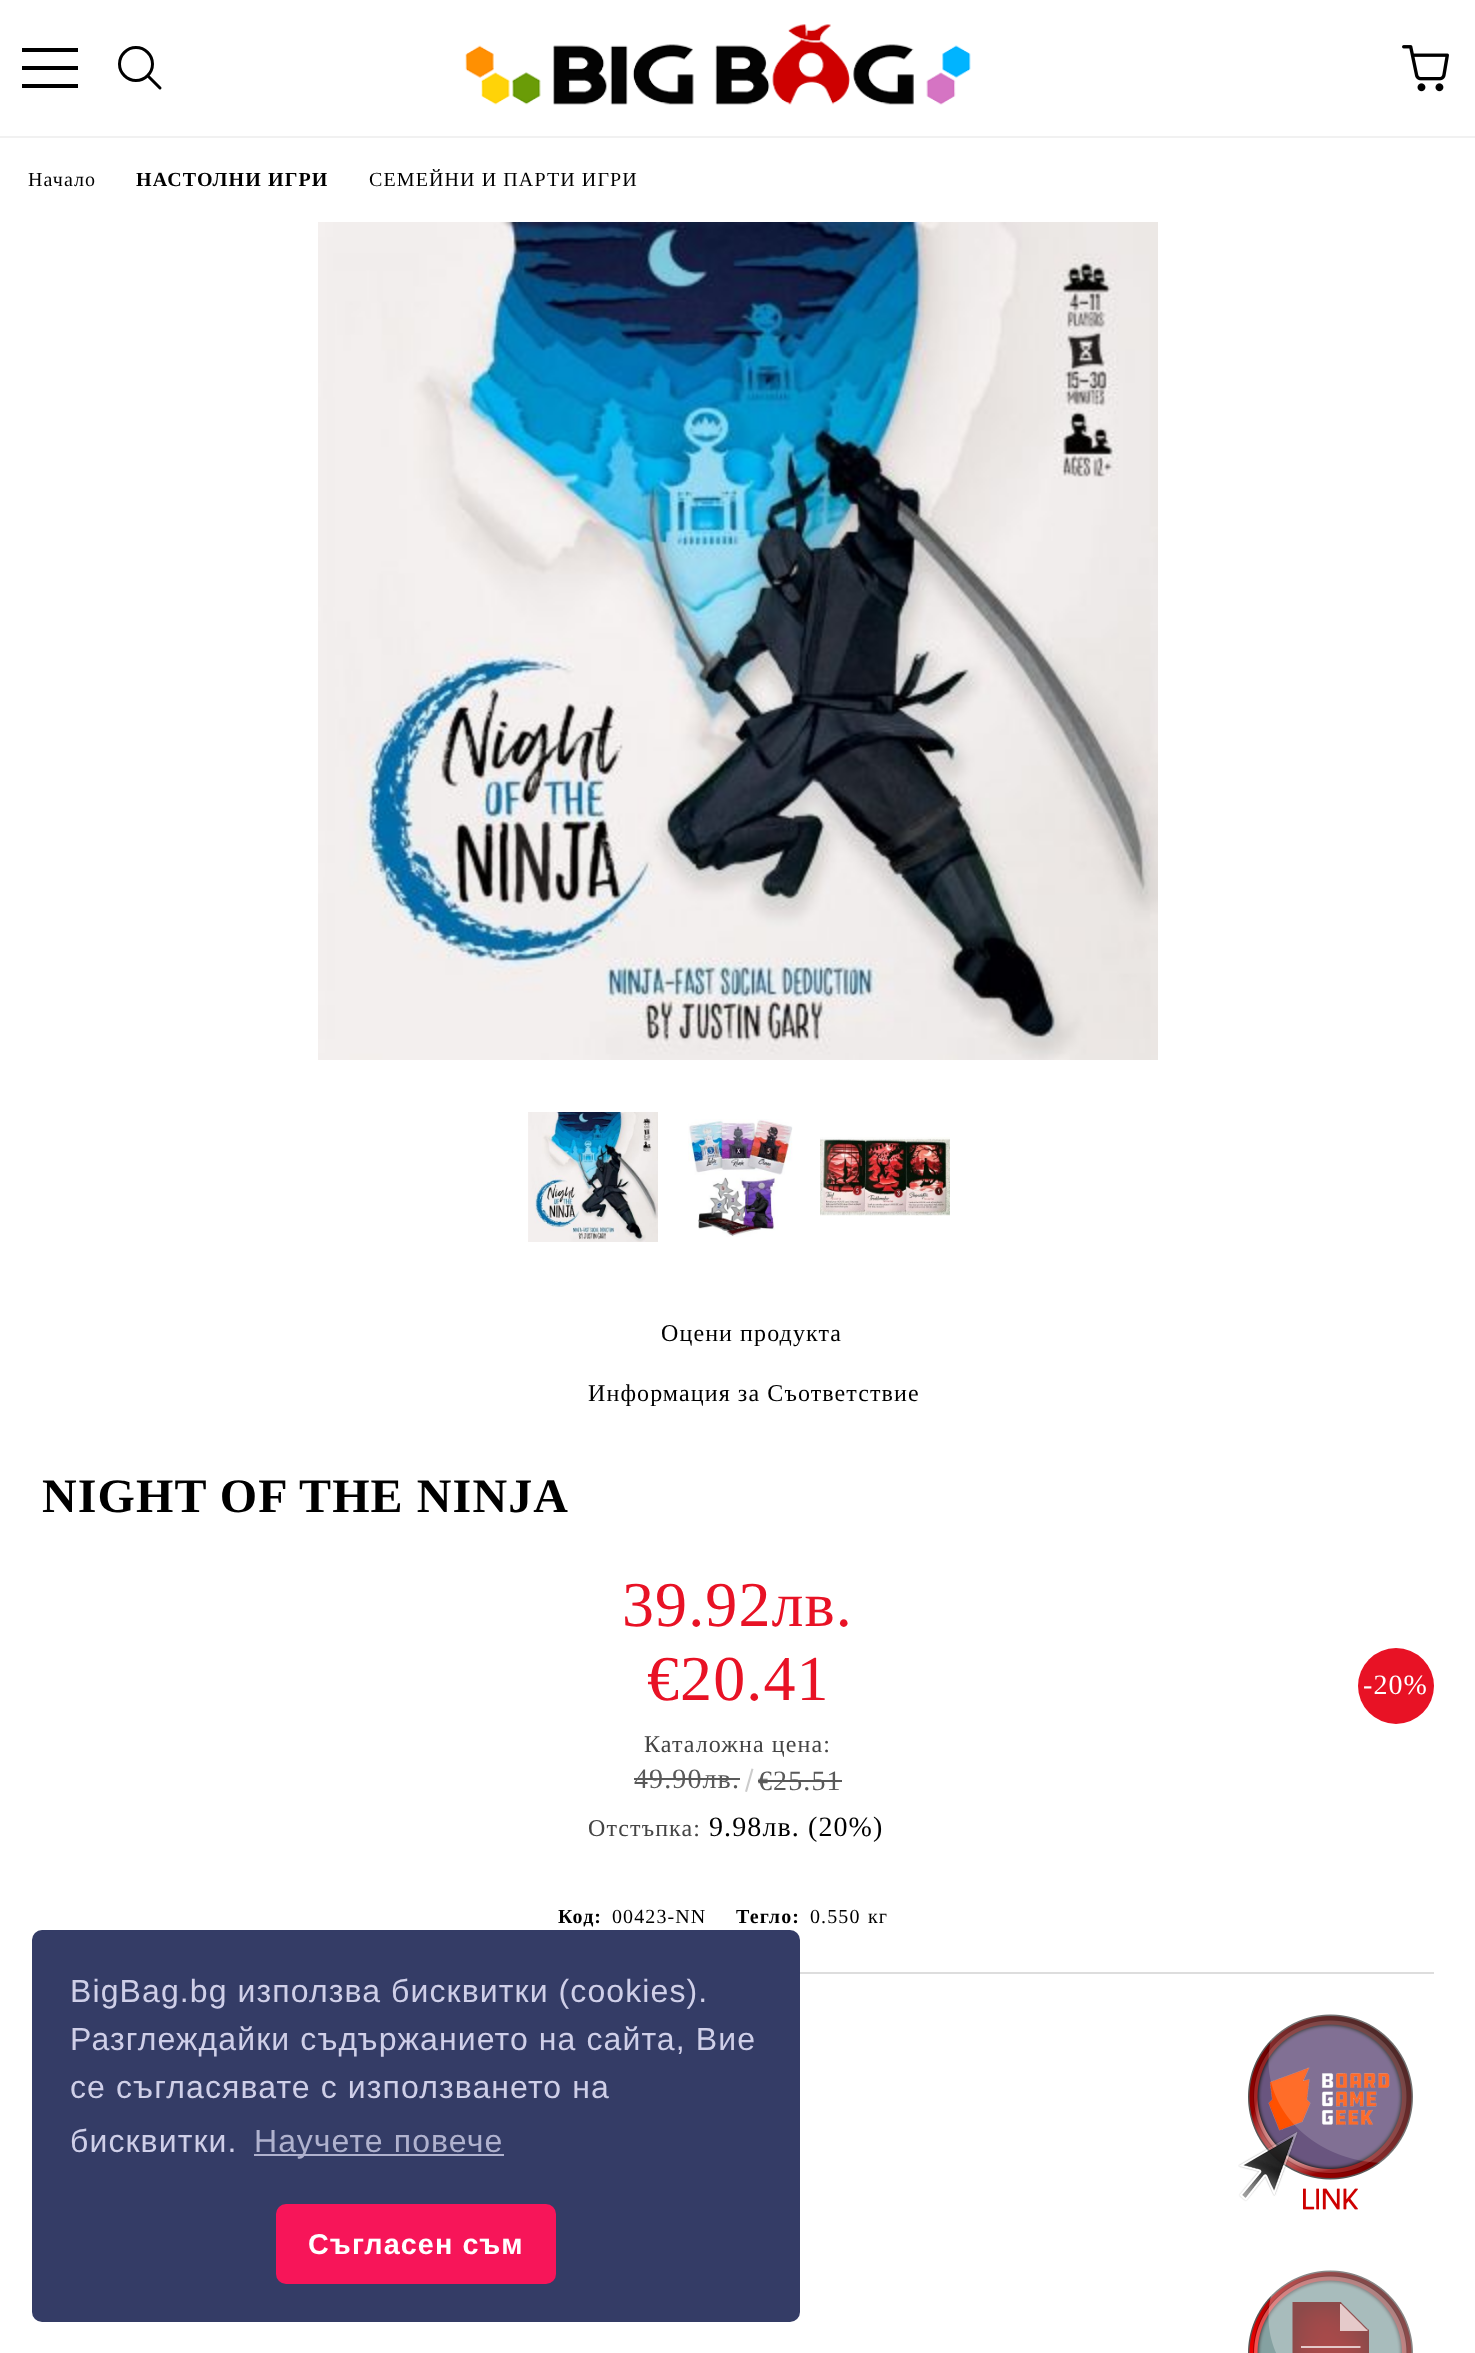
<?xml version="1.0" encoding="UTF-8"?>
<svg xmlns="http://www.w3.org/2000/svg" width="1475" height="2353">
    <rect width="100%" height="100%" fill="#FFFFFF"/>
    <rect x="0" y="136" width="1475" height="2" fill="#F1F1F1"/>
    <rect x="22" y="48" width="56" height="4" fill="#000000"/>
    <rect x="22" y="66" width="56" height="4" fill="#000000"/>
    <rect x="22" y="84" width="56" height="4" fill="#000000"/>
    <path d="M 136 47.5 C 127 47.5 119.5 55 119.5 64 C 119.5 73 127 80.5 136 80.5 C 145 80.5 152.5 73 152.5 64 C 152.5 55 145 47.5 136 47.5 Z" fill="none" stroke="#000000" stroke-width="3"/>
    <path d="M 148.5 76.5 L 160 88" fill="none" stroke="#000000" stroke-width="3" stroke-linecap="round"/>
    <image x="465" y="24" width="506" height="81" href="img_01.png"/>
    <image x="1402" y="45" width="47" height="47" href="img_02.png"/>
    <text x="28" y="186" font-family="Liberation Serif" font-size="20" letter-spacing="1.1" fill="#000000">Начало</text>
    <text x="136" y="186" font-family="Liberation Serif" font-size="20" font-weight="700" letter-spacing="1.1" fill="#000000">НАСТОЛНИ ИГРИ</text>
    <text x="369" y="186" font-family="Liberation Serif" font-size="20" letter-spacing="1.1" fill="#000000">СЕМЕЙНИ И ПАРТИ ИГРИ</text>
    <image x="318" y="222" width="840" height="838" href="img_03.png"/>
    <image x="528" y="1112" width="130" height="130" href="img_04.png"/>
    <image x="688" y="1119" width="105" height="118" href="img_05.png"/>
    <image x="820" y="1137" width="130" height="79" href="img_06.png"/>
    <text x="661" y="1341" font-family="Liberation Serif" font-size="24" letter-spacing="1.1" fill="#000000">Оцени продукта</text>
    <text x="588" y="1401" font-family="Liberation Serif" font-size="24" letter-spacing="1.1" fill="#000000">Информация за Съответствие</text>
    <text x="42" y="1512" font-family="Liberation Serif" font-size="48" font-weight="700" letter-spacing="1.1" fill="#000000">NIGHT OF THE NINJA</text>
    <text x="622" y="1626" font-family="Liberation Serif" font-size="64" letter-spacing="1.1" fill="#E81225">39.92лв.</text>
    <text x="647" y="1700" font-family="Liberation Serif" font-size="64" letter-spacing="1.1" fill="#E81225">€20.41</text>
    <circle cx="1396" cy="1686" r="38" fill="#E81225"/>
    <text x="1363" y="1694" font-family="Liberation Serif" font-size="28" letter-spacing="1.1" fill="#FFFFFF">-20%</text>
    <text x="644" y="1752" font-family="Liberation Serif" font-size="24" letter-spacing="1.1" fill="#444444">Каталожна цена:</text>
    <text x="634" y="1788" font-family="Liberation Serif" font-size="28" letter-spacing="1.1" fill="#595959">49.90лв.</text>
    <rect x="634" y="1778" width="106" height="2" fill="#595959"/>
    <path d="M 751.5 1768.5 L 753.5 1769 L 747 1792 L 745 1791.5 Z" fill="#CBCBCB"/>
    <text x="758" y="1790" font-family="Liberation Serif" font-size="28" letter-spacing="1.1" fill="#595959">€25.51</text>
    <rect x="758" y="1780" width="84" height="2" fill="#595959"/>
    <text x="588" y="1836" font-family="Liberation Serif" font-size="24" letter-spacing="1.1" fill="#444444">Отстъпка:</text>
    <text x="709" y="1836" font-family="Liberation Serif" font-size="28" letter-spacing="1.1" fill="#000000">9.98лв. (20%)</text>
    <rect x="800" y="1972" width="634" height="2" fill="#DDDDDD"/>
    <text x="558" y="1923" font-family="Liberation Serif" font-size="20" font-weight="700" letter-spacing="1.1" fill="#000000">Код:</text>
    <text x="612" y="1923" font-family="Liberation Serif" font-size="20" letter-spacing="1.1" fill="#000000">00423-NN</text>
    <text x="736" y="1923" font-family="Liberation Serif" font-size="20" font-weight="700" letter-spacing="1.1" fill="#000000">Тегло:</text>
    <text x="810" y="1923" font-family="Liberation Serif" font-size="20" letter-spacing="1.1" fill="#000000">0.550</text>
    <text x="868" y="1923" font-family="Liberation Serif" font-size="20" letter-spacing="1.1" fill="#000000">кг</text>
    <image x="1238" y="2014" width="175" height="196" href="img_07.png"/>
    <image x="1248" y="2270" width="165" height="83" href="img_08.png"/>
    <rect x="32" y="1930" width="768" height="392" rx="10" fill="#343C66"/>
    <text font-family="Liberation Sans" font-size="32" letter-spacing="1.1" fill="#CFCFE8">
        <tspan x="70" y="2002">BigBag.bg използва бисквитки (cookies).</tspan>
        <tspan x="70" y="2050">Разглеждайки съдържанието на сайта, Вие</tspan>
        <tspan x="70" y="2098">се съгласявате с използването на</tspan>
        <tspan x="70" y="2152">бисквитки.</tspan>
    </text>
    <rect x="254" y="2154" width="250" height="2" fill="#B0B2CE"/>
    <text x="254" y="2152" font-family="Liberation Sans" font-size="32" letter-spacing="1.1" fill="#B0B2CE">Научете повече</text>
    <rect x="276" y="2204" width="280" height="80" rx="10" fill="#F71559"/>
    <text x="308" y="2254" font-family="Liberation Sans" font-size="28.75" font-weight="700" letter-spacing="1.1" fill="#FFFFFF">Съгласен съм</text>
</svg>
